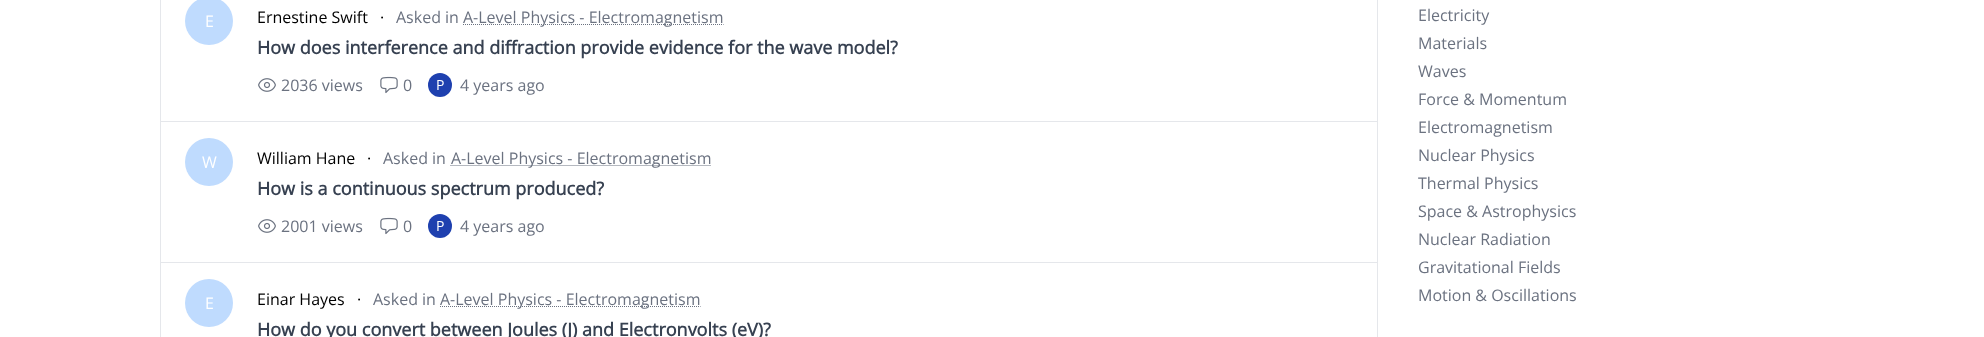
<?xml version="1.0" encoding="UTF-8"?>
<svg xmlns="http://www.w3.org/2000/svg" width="1984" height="337">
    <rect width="100%" height="100%" fill="#FFFFFF"/>
    <rect x="160.5" y="-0.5" width="1217" height="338" fill="none" stroke="#E5E7EB"/>
    <rect x="161" y="121" width="1216" height="1" fill="#E5E7EB"/>
    <circle cx="209" cy="21" r="24" fill="#BFDBFE"/>
    <text x="205" y="27" font-family="Open Sans" font-size="16" fill="#FFFFFF">E</text>
    <text x="257" y="23" font-family="Open Sans" font-size="16" fill="#000000">Ernestine Swift</text>
    <text x="380" y="23" font-family="Open Sans" font-size="16" fill="#000000">·</text>
    <text x="396" y="23" font-family="Open Sans" font-size="16" fill="#6B7280">Asked in</text>
    <path d="M 463 24.5 H 723.5" fill="none" stroke="#6B7280" stroke-dasharray="1 1"/>
    <text x="463" y="23" font-family="Open Sans" font-size="16" fill="#6B7280">A-Level Physics - Electromagnetism</text>
    <text x="257" y="54" font-family="Open Sans" font-size="18" font-weight="700" fill="#374151">How does interference and diffraction provide evidence for the wave model?</text>
    <image x="258" y="78" width="18" height="14" href="img_01.png"/>
    <text x="281" y="91" font-family="Open Sans" font-size="16" fill="#6B7280">2036 views</text>
    <image x="380" y="76" width="18" height="18" href="img_02.png"/>
    <text x="403" y="91" font-family="Open Sans" font-size="16" fill="#6B7280">0</text>
    <circle cx="440" cy="85" r="12" fill="#1E40AF"/>
    <text x="436" y="90" font-family="Open Sans" font-size="14" fill="#FFFFFF">P</text>
    <text x="460" y="91" font-family="Open Sans" font-size="16" fill="#6B7280">4 years ago</text>
    <rect x="161" y="262" width="1216" height="1" fill="#E5E7EB"/>
    <circle cx="209" cy="162" r="24" fill="#BFDBFE"/>
    <text x="202" y="168" font-family="Open Sans" font-size="16" fill="#FFFFFF">W</text>
    <text x="257" y="164" font-family="Open Sans" font-size="16" fill="#000000">William Hane</text>
    <text x="367" y="164" font-family="Open Sans" font-size="16" fill="#000000">·</text>
    <text x="383" y="164" font-family="Open Sans" font-size="16" fill="#6B7280">Asked in</text>
    <path d="M 450.5 165.5 H 711" fill="none" stroke="#6B7280" stroke-dasharray="1 1"/>
    <text x="451" y="164" font-family="Open Sans" font-size="16" fill="#6B7280">A-Level Physics - Electromagnetism</text>
    <text x="257" y="195" font-family="Open Sans" font-size="18" font-weight="700" fill="#374151">How is a continuous spectrum produced?</text>
    <image x="258" y="219" width="18" height="14" href="img_01.png"/>
    <text x="281" y="232" font-family="Open Sans" font-size="16" fill="#6B7280">2001 views</text>
    <image x="380" y="217" width="18" height="18" href="img_02.png"/>
    <text x="403" y="232" font-family="Open Sans" font-size="16" fill="#6B7280">0</text>
    <circle cx="440" cy="226" r="12" fill="#1E40AF"/>
    <text x="436" y="231" font-family="Open Sans" font-size="14" fill="#FFFFFF">P</text>
    <text x="460" y="232" font-family="Open Sans" font-size="16" fill="#6B7280">4 years ago</text>
    <circle cx="209" cy="303" r="24" fill="#BFDBFE"/>
    <text x="205" y="309" font-family="Open Sans" font-size="16" fill="#FFFFFF">E</text>
    <text x="257" y="305" font-family="Open Sans" font-size="16" fill="#000000">Einar Hayes</text>
    <text x="357" y="305" font-family="Open Sans" font-size="16" fill="#000000">·</text>
    <text x="373" y="305" font-family="Open Sans" font-size="16" fill="#6B7280">Asked in</text>
    <path d="M 440 306.5 H 700.5" fill="none" stroke="#6B7280" stroke-dasharray="1 1"/>
    <text x="440" y="305" font-family="Open Sans" font-size="16" fill="#6B7280">A-Level Physics - Electromagnetism</text>
    <text x="257" y="336" font-family="Open Sans" font-size="18" font-weight="700" fill="#374151">How do you convert between Joules (J) and Electronvolts (eV)?</text>
    <text font-family="Open Sans" font-size="16" fill="#6B7280">
        <tspan x="1418" y="21">Electricity</tspan>
        <tspan x="1418" y="49">Materials</tspan>
        <tspan x="1418" y="77">Waves</tspan>
        <tspan x="1418" y="105">Force &amp; Momentum</tspan>
        <tspan x="1418" y="133">Electromagnetism</tspan>
        <tspan x="1418" y="161">Nuclear Physics</tspan>
        <tspan x="1418" y="189">Thermal Physics</tspan>
        <tspan x="1418" y="217">Space &amp; Astrophysics</tspan>
        <tspan x="1418" y="245">Nuclear Radiation</tspan>
        <tspan x="1418" y="273">Gravitational Fields</tspan>
        <tspan x="1418" y="301">Motion &amp; Oscillations</tspan>
    </text>
</svg>
